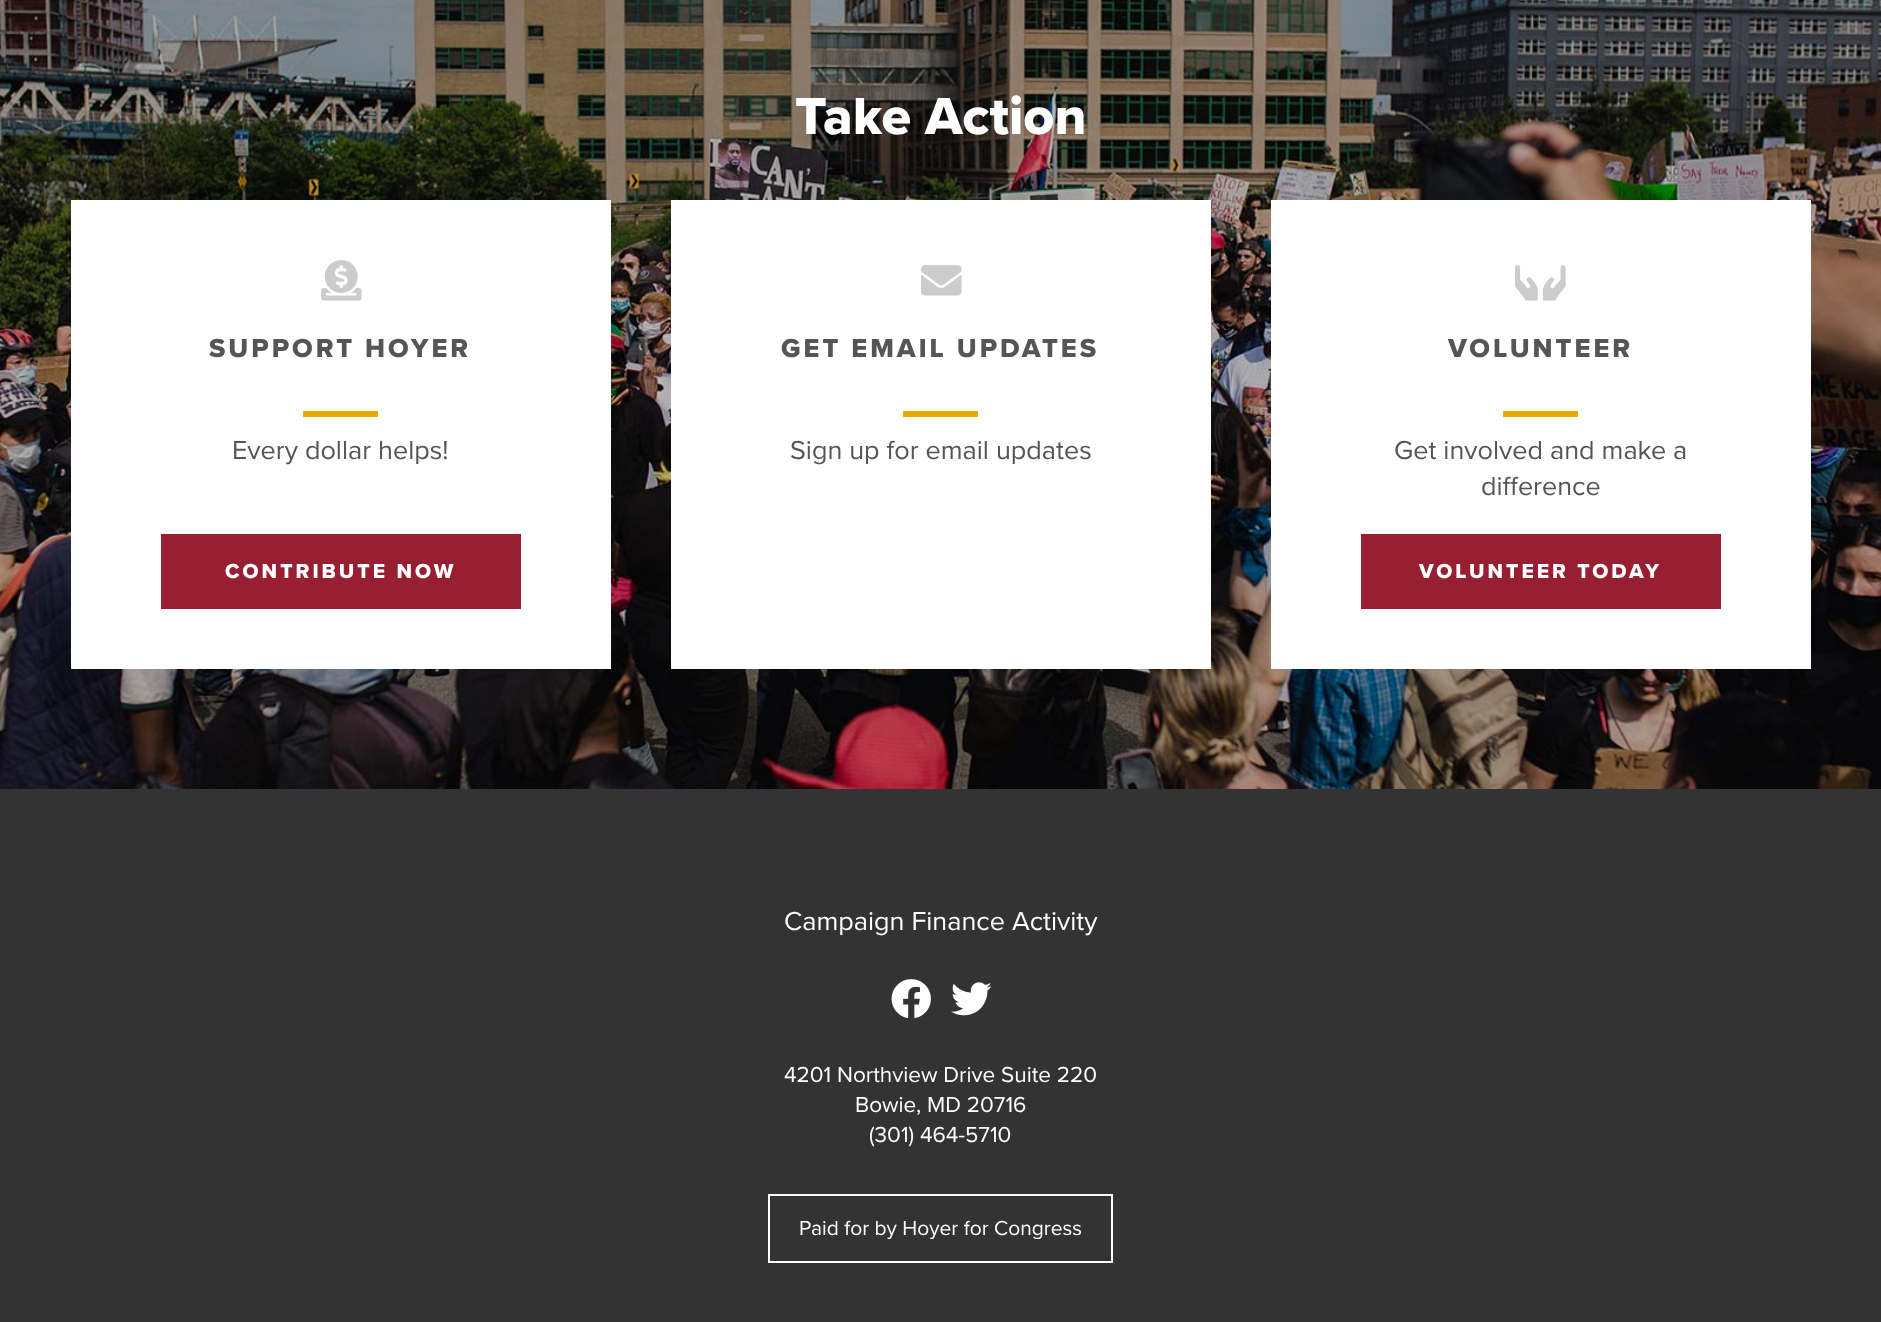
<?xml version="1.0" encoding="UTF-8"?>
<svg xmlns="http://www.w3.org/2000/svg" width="1881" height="1322">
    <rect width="100%" height="100%" fill="#FFFFFF"/>
    <image x="0" y="0" width="1881" height="789" href="img_01.png"/>
    <text x="795" y="134" font-family="Proxima Nova" font-size="54" font-weight="800" fill="#FFFFFF">Take Action</text>
    <rect x="71" y="200" width="540" height="469" fill="#FFFFFF"/>
    <image x="321" y="260" width="41" height="41" href="img_02.png"/>
    <text x="209" y="357" font-family="Proxima Nova" font-size="27" font-weight="800" letter-spacing="3" fill="#555555">SUPPORT HOYER</text>
    <rect x="303" y="411" width="75" height="6" fill="#EAAB00"/>
    <text x="232" y="459" font-family="Proxima Nova" font-size="27" fill="#555555">Every dollar helps!</text>
    <rect x="161" y="534" width="360" height="75" fill="#981E32"/>
    <text x="225" y="578" font-family="Proxima Nova" font-size="21" font-weight="800" letter-spacing="3" fill="#FFFFFF">CONTRIBUTE NOW</text>
    <rect x="671" y="200" width="540" height="469" fill="#FFFFFF"/>
    <image x="921" y="265" width="41" height="31" href="img_03.png"/>
    <text x="781" y="357" font-family="Proxima Nova" font-size="27" font-weight="800" letter-spacing="3" fill="#555555">GET EMAIL UPDATES</text>
    <rect x="903" y="411" width="75" height="6" fill="#EAAB00"/>
    <text x="790" y="459" font-family="Proxima Nova" font-size="27" fill="#555555">Sign up for email updates</text>
    <rect x="1271" y="200" width="540" height="469" fill="#FFFFFF"/>
    <image x="1515" y="265" width="51" height="36" href="img_04.png"/>
    <text x="1448" y="357" font-family="Proxima Nova" font-size="27" font-weight="800" letter-spacing="3" fill="#555555">VOLUNTEER</text>
    <rect x="1503" y="411" width="75" height="6" fill="#EAAB00"/>
    <text x="1394" y="459" font-family="Proxima Nova" font-size="27" fill="#555555">Get involved and make a</text>
    <text x="1481" y="495" font-family="Proxima Nova" font-size="27" fill="#555555">difference</text>
    <rect x="1361" y="534" width="360" height="75" fill="#981E32"/>
    <text x="1419" y="578" font-family="Proxima Nova" font-size="21" font-weight="800" letter-spacing="3" fill="#FFFFFF">VOLUNTEER TODAY</text>
    <rect x="0" y="789" width="1881" height="533" fill="#333333"/>
    <text x="784" y="930" font-family="Proxima Nova" font-size="27" fill="#FFFFFF">Campaign Finance Activity</text>
    <image x="891" y="979" width="40" height="40" href="img_05.png"/>
    <image x="951" y="982" width="41" height="34" href="img_06.png"/>
    <text x="784" y="1082" font-family="Proxima Nova" font-size="22.5" fill="#FFFFFF">4201 Northview Drive Suite 220</text>
    <text x="855" y="1112" font-family="Proxima Nova" font-size="22.5" fill="#FFFFFF">Bowie, MD 20716</text>
    <text x="869" y="1142" font-family="Proxima Nova" font-size="22.5" fill="#FFFFFF">(301) 464-5710</text>
    <rect x="769" y="1195" width="343" height="67" fill="none" stroke="#FFFFFF" stroke-width="2"/>
    <text x="799" y="1235" font-family="Proxima Nova" font-size="21" fill="#FFFFFF">Paid for by Hoyer for Congress</text>
</svg>
